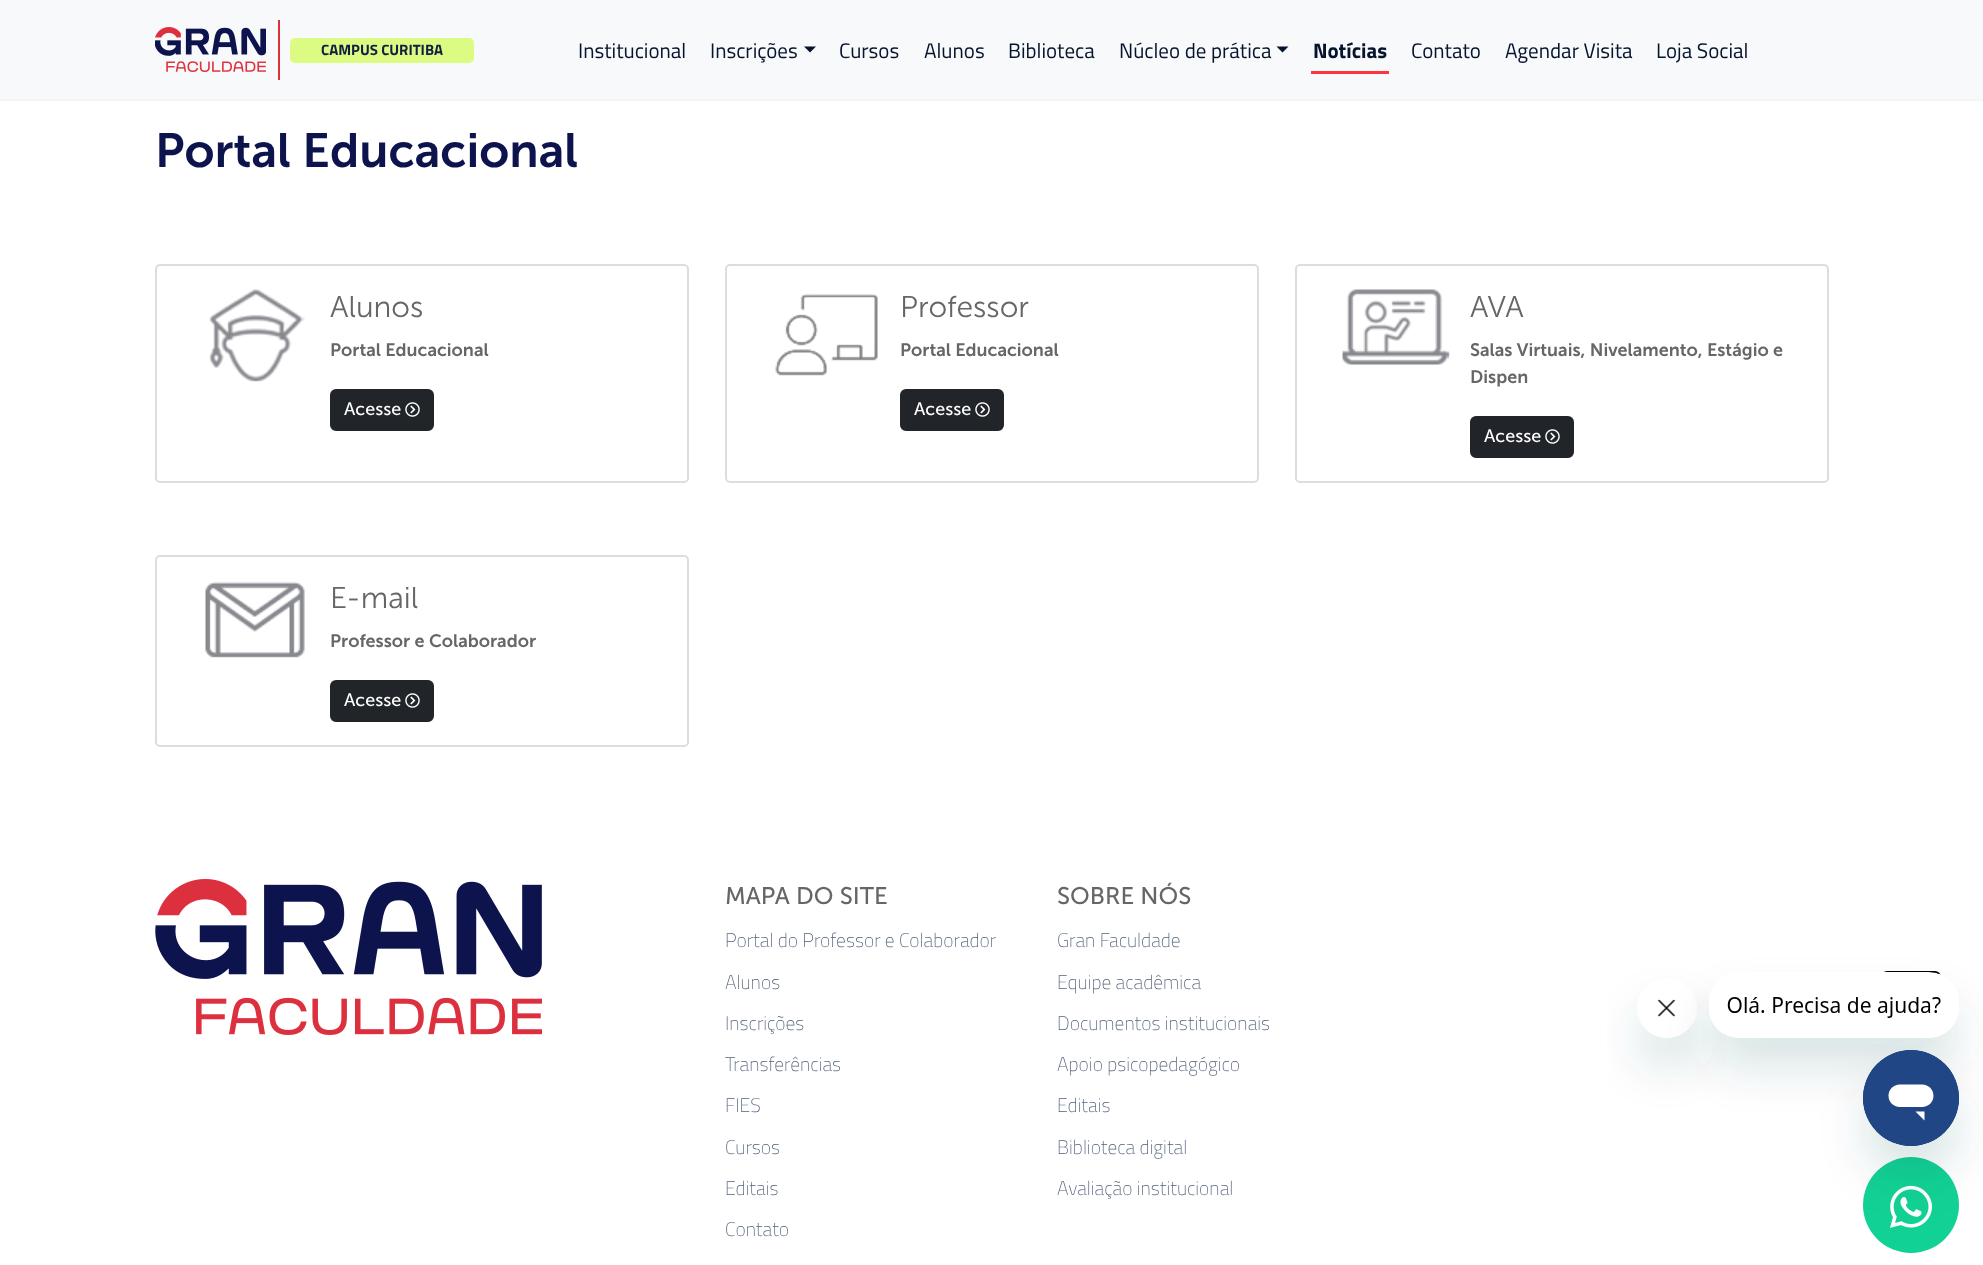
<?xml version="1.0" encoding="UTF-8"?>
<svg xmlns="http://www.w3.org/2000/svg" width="1983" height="1265">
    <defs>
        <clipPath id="clip1"><path d="M 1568 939 H 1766 V 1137 H 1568 Z M 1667 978 C 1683.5 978 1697 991.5 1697 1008 C 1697 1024.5 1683.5 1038 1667 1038 C 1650.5 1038 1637 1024.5 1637 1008 C 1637 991.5 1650.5 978 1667 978 Z" clip-rule="evenodd"/></clipPath>
        <filter id="blur1" x="-50%" y="-200%" width="200%" height="500%"><feGaussianBlur stdDeviation="22.5"/></filter>
        <clipPath id="clip2"><path d="M 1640 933 H 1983 V 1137 H 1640 Z M 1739 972 H 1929 C 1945.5 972 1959 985.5 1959 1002 V 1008 C 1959 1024.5 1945.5 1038 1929 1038 H 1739 C 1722.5 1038 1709 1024.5 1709 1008 V 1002 C 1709 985.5 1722.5 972 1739 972 Z" clip-rule="evenodd"/></clipPath>
    </defs>
    <rect width="100%" height="100%" fill="#FFFFFF"/>
    <rect x="0" y="0" width="1983" height="99" fill="#F8F9FA"/>
    <rect x="0" y="99" width="1983" height="2" fill="#F4F5F7"/>
    <image x="155" y="27" width="111" height="45" href="img_01.png"/>
    <rect x="278" y="20" width="2" height="60" fill="#DD303E"/>
    <rect x="290" y="38" width="184" height="25" rx="5" fill="#DBFB83"/>
    <text x="321" y="55" font-family="Titillium Web" font-size="15" font-weight="700" fill="#131E41">CAMPUS CURITIBA</text>
    <text x="578" y="58" font-family="Titillium Web" font-size="21" fill="#06142D">Institucional</text>
    <text x="710" y="58" font-family="Titillium Web" font-size="21" fill="#06142D">Inscrições</text>
    <path d="M 804 46.5 H 816 L 810 52.5 Z" fill="#06142D"/>
    <text x="839" y="58" font-family="Titillium Web" font-size="21" fill="#06142D">Cursos</text>
    <text x="924" y="58" font-family="Titillium Web" font-size="21" fill="#06142D">Alunos</text>
    <text x="1008" y="58" font-family="Titillium Web" font-size="21" fill="#06142D">Biblioteca</text>
    <text x="1119" y="58" font-family="Titillium Web" font-size="21" fill="#06142D">Núcleo de prática</text>
    <path d="M 1276.5 46.5 H 1288.5 L 1282.5 52.5 Z" fill="#06142D"/>
    <text x="1313" y="58" font-family="Titillium Web" font-size="21" font-weight="700" fill="#06142D">Notícias</text>
    <rect x="1311" y="71" width="78" height="3" fill="#FF333B"/>
    <text x="1411" y="58" font-family="Titillium Web" font-size="21" fill="#06142D">Contato</text>
    <text x="1505" y="58" font-family="Titillium Web" font-size="21" fill="#06142D">Agendar Visita</text>
    <text x="1656" y="58" font-family="Titillium Web" font-size="21" fill="#06142D">Loja Social</text>
    <text x="155" y="167" font-family="'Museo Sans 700'" font-size="48" font-weight="600" fill="#0D134C">Portal Educacional</text>
    <rect x="156" y="265" width="532" height="217" rx="4" fill="none" stroke="#DDDDDD" stroke-width="2"/>
    <image x="209" y="289" width="96" height="93" href="img_02.png"/>
    <text x="330" y="317" font-family="'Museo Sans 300'" font-size="30" font-weight="300" fill="#666666">Alunos</text>
    <text x="330" y="356" font-family="'Museo Sans 700'" font-size="18" font-weight="600" fill="#666666">Portal Educacional</text>
    <rect x="331" y="390" width="102" height="40" rx="5" fill="#212529" stroke="#212529" stroke-width="2"/>
    <text x="344" y="415" font-family="'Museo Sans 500'" font-size="18" fill="#FFFFFF">Acesse</text>
    <image x="405" y="402" width="15" height="15" href="img_03.png"/>
    <rect x="726" y="265" width="532" height="217" rx="4" fill="none" stroke="#DDDDDD" stroke-width="2"/>
    <image x="775" y="293" width="103" height="83" href="img_04.png"/>
    <text x="900" y="317" font-family="'Museo Sans 300'" font-size="30" font-weight="300" fill="#666666">Professor</text>
    <text x="900" y="356" font-family="'Museo Sans 700'" font-size="18" font-weight="600" fill="#666666">Portal Educacional</text>
    <rect x="901" y="390" width="102" height="40" rx="5" fill="#212529" stroke="#212529" stroke-width="2"/>
    <text x="914" y="415" font-family="'Museo Sans 500'" font-size="18" fill="#FFFFFF">Acesse</text>
    <image x="975" y="402" width="15" height="15" href="img_03.png"/>
    <rect x="1296" y="265" width="532" height="217" rx="4" fill="none" stroke="#DDDDDD" stroke-width="2"/>
    <image x="1342" y="289" width="108" height="76" href="img_05.png"/>
    <text x="1470" y="317" font-family="'Museo Sans 300'" font-size="30" font-weight="300" fill="#666666">AVA</text>
    <text font-family="'Museo Sans 700'" font-size="18" font-weight="600" fill="#666666">
        <tspan x="1470" y="356">Salas Virtuais, Nivelamento, Estágio e</tspan>
        <tspan x="1470" y="383">Dispen</tspan>
    </text>
    <rect x="1471" y="417" width="102" height="40" rx="5" fill="#212529" stroke="#212529" stroke-width="2"/>
    <text x="1484" y="442" font-family="'Museo Sans 500'" font-size="18" fill="#FFFFFF">Acesse</text>
    <image x="1545" y="429" width="15" height="15" href="img_03.png"/>
    <rect x="156" y="556" width="532" height="190" rx="4" fill="none" stroke="#DDDDDD" stroke-width="2"/>
    <image x="205" y="581" width="100" height="77" href="img_06.png"/>
    <text x="330" y="608" font-family="'Museo Sans 300'" font-size="30" font-weight="300" fill="#666666">E-mail</text>
    <text x="330" y="647" font-family="'Museo Sans 700'" font-size="18" font-weight="600" fill="#666666">Professor e Colaborador</text>
    <rect x="331" y="681" width="102" height="40" rx="5" fill="#212529" stroke="#212529" stroke-width="2"/>
    <text x="344" y="706" font-family="'Museo Sans 500'" font-size="18" fill="#FFFFFF">Acesse</text>
    <image x="405" y="693" width="15" height="15" href="img_03.png"/>
    <image x="155" y="879" width="387" height="156" href="img_07.png"/>
    <text x="725" y="904" font-family="'Museo Sans 500'" font-size="24" fill="#666666">MAPA DO SITE</text>
    <text x="725" y="947" font-family="Titillium Web" font-size="19.5" font-weight="300" fill="#505F79">Portal do Professor e Colaborador</text>
    <text x="725" y="989" font-family="Titillium Web" font-size="19.5" font-weight="300" fill="#505F79">Alunos</text>
    <text x="725" y="1030" font-family="Titillium Web" font-size="19.5" font-weight="300" fill="#505F79">Inscrições</text>
    <text x="725" y="1071" font-family="Titillium Web" font-size="19.5" font-weight="300" fill="#505F79">Transferências</text>
    <text x="725" y="1112" font-family="Titillium Web" font-size="19.5" font-weight="300" fill="#505F79">FIES</text>
    <text x="725" y="1154" font-family="Titillium Web" font-size="19.5" font-weight="300" fill="#505F79">Cursos</text>
    <text x="725" y="1195" font-family="Titillium Web" font-size="19.5" font-weight="300" fill="#505F79">Editais</text>
    <text x="725" y="1236" font-family="Titillium Web" font-size="19.5" font-weight="300" fill="#505F79">Contato</text>
    <text x="1057" y="904" font-family="'Museo Sans 500'" font-size="24" fill="#666666">SOBRE NÓS</text>
    <text x="1057" y="947" font-family="Titillium Web" font-size="19.5" font-weight="300" fill="#505F79">Gran Faculdade</text>
    <text x="1057" y="989" font-family="Titillium Web" font-size="19.5" font-weight="300" fill="#505F79">Equipe acadêmica</text>
    <text x="1057" y="1030" font-family="Titillium Web" font-size="19.5" font-weight="300" fill="#505F79">Documentos institucionais</text>
    <text x="1057" y="1071" font-family="Titillium Web" font-size="19.5" font-weight="300" fill="#505F79">Apoio psicopedagógico</text>
    <text x="1057" y="1112" font-family="Titillium Web" font-size="19.5" font-weight="300" fill="#505F79">Editais</text>
    <text x="1057" y="1154" font-family="Titillium Web" font-size="19.5" font-weight="300" fill="#505F79">Biblioteca digital</text>
    <text x="1057" y="1195" font-family="Titillium Web" font-size="19.5" font-weight="300" fill="#505F79">Avaliação institucional</text>
    <rect x="1882.5" y="972.5" width="57" height="57" rx="4.5" fill="none" stroke="#000000" stroke-width="3"/>
    <circle cx="1911" cy="1205" r="48" fill="#12D194"/>
    <image x="1890" y="1185" width="42" height="43" href="img_08.png"/>
    <g clip-path="url(#clip1)">
        <rect x="1637" y="1008" width="60" height="60" rx="30" fill="#17494D" fill-opacity="0.15" filter="url(#blur1)"/>
    </g>
    <image x="1657" y="999" width="19" height="18" href="img_10.png"/>
    <g clip-path="url(#clip2)">
        <rect x="1709" y="1002" width="250" height="66" rx="30" fill="#17494D" fill-opacity="0.15" filter="url(#blur1)"/>
    </g>
    <image x="1709" y="972" width="232" height="61" href="img_09.png"/>
    <rect x="1863" y="1080" width="96" height="96" rx="48" fill="#17494D" fill-opacity="0.15" filter="url(#blur1)"/>
    <image x="1863" y="1050" width="96" height="96" href="img_11.png"/>
</svg>
